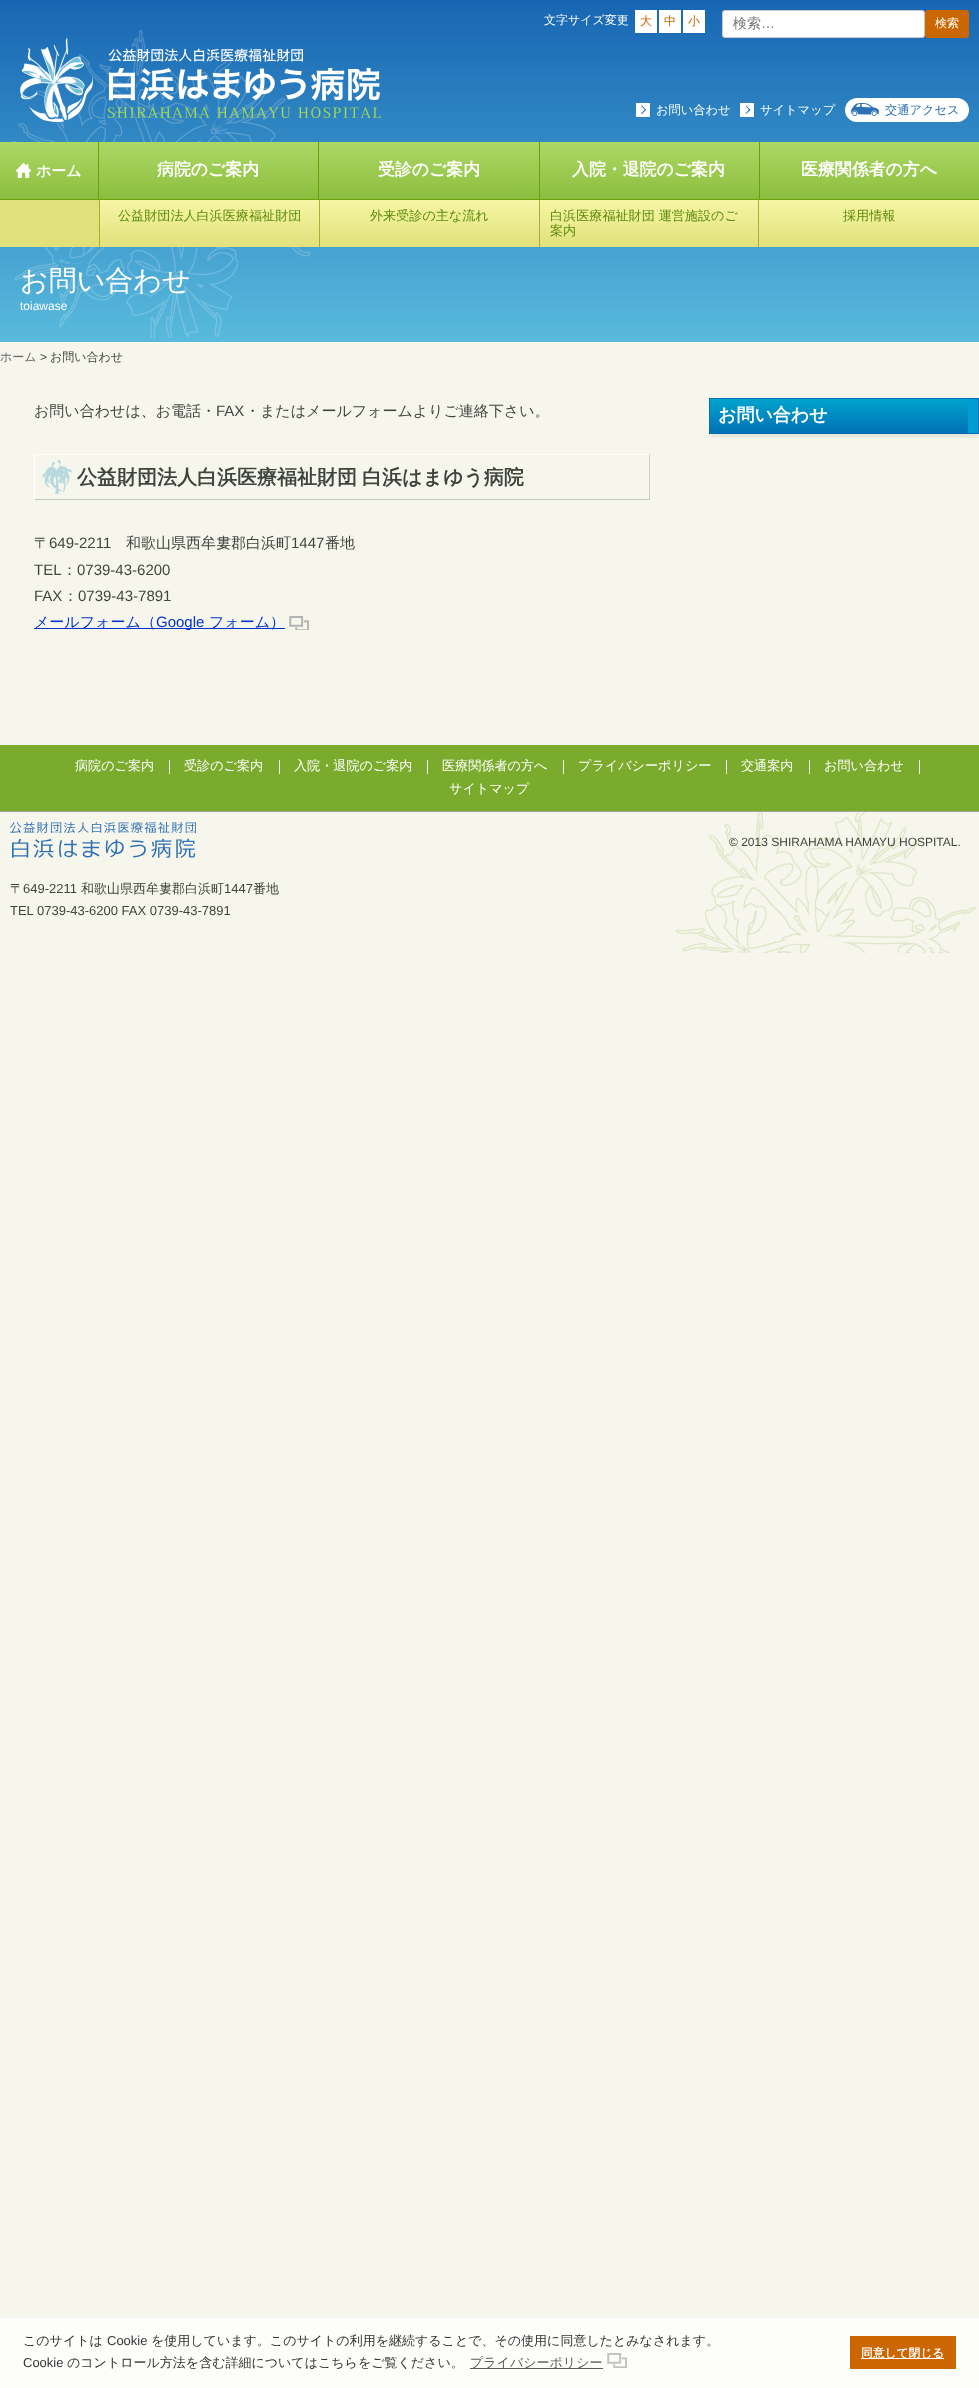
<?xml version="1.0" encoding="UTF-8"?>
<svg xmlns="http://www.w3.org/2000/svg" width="979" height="2388">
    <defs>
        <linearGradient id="g1" gradientUnits="userSpaceOnUse" x1="490" y1="142" x2="490" y2="199"><stop offset="0" stop-color="#ACD964"/><stop offset="1" stop-color="#8DBD3F"/></linearGradient>
        <linearGradient id="g2" gradientUnits="userSpaceOnUse" x1="210" y1="200" x2="210" y2="247"><stop offset="0" stop-color="#F6F6A5"/><stop offset="1" stop-color="#E1E17C"/></linearGradient>
        <linearGradient id="g3" gradientUnits="userSpaceOnUse" x1="430" y1="200" x2="430" y2="247"><stop offset="0" stop-color="#F6F6A5"/><stop offset="1" stop-color="#E1E17C"/></linearGradient>
        <linearGradient id="g4" gradientUnits="userSpaceOnUse" x1="650" y1="200" x2="650" y2="247"><stop offset="0" stop-color="#F6F6A5"/><stop offset="1" stop-color="#E1E17C"/></linearGradient>
        <linearGradient id="g5" gradientUnits="userSpaceOnUse" x1="869" y1="200" x2="869" y2="247"><stop offset="0" stop-color="#F6F6A5"/><stop offset="1" stop-color="#E1E17C"/></linearGradient>
        <linearGradient id="g6" gradientUnits="userSpaceOnUse" x1="844" y1="399" x2="844" y2="433"><stop offset="0" stop-color="#00A4CD"/><stop offset="1" stop-color="#0071B6"/></linearGradient>
        <filter id="blur1" x="-50%" y="-200%" width="200%" height="500%"><feGaussianBlur stdDeviation="2.5"/></filter>
    </defs>
    <rect width="100%" height="100%" fill="#F7F6ED"/>
    <image x="0" y="0" width="979" height="342" href="img_01.png"/>
    <text x="544" y="24" font-family="WenQuanYi Zen Hei" font-size="12" font-weight="500" fill="#FFFFFF">文字サイズ変更</text>
    <rect x="635" y="10" width="22" height="23" fill="#FFFFFF"/>
    <text x="640" y="25" font-family="WenQuanYi Zen Hei" font-size="12" font-weight="500" fill="#CC6600">大</text>
    <rect x="659" y="10" width="22" height="23" fill="#FFFFFF"/>
    <text x="664" y="25" font-family="WenQuanYi Zen Hei" font-size="12" font-weight="500" fill="#CC6600">中</text>
    <rect x="683" y="10" width="22" height="23" fill="#FFFFFF"/>
    <text x="688" y="25" font-family="WenQuanYi Zen Hei" font-size="12" font-weight="500" fill="#CC6600">小</text>
    <rect x="722.5" y="10.5" width="202" height="27" rx="2.5" fill="#FFFFFF" stroke="#CCCCCC"/>
    <text x="733" y="28" font-family="WenQuanYi Zen Hei" font-size="14" font-weight="500" fill="#757575">検索</text>
    <text x="761" y="28" font-family="Liberation Sans" font-size="14" fill="#757575">…</text>
    <rect x="925" y="10" width="44" height="28" rx="3" fill="#CC6600"/>
    <text x="935" y="27" font-family="WenQuanYi Zen Hei" font-size="12" font-weight="500" fill="#FFFFFF">検索</text>
    <image x="11" y="30" width="300" height="308" href="img_09.png"/>
    <image x="20" y="38" width="361" height="84" href="img_02.png"/>
    <rect x="636" y="103" width="14" height="14" fill="#FFFFFF"/>
    <text x="656" y="114" font-family="WenQuanYi Zen Hei" font-size="12.25" font-weight="500" fill="#FFFFFF">お問い合わせ</text>
    <path d="M 642 105.5 L 646 110 L 645.5 110.5 L 641 106 Z" fill="#2D70B3"/>
    <path d="M 645.5 109 L 646 110 L 642 114 L 641 113.5 Z" fill="#2D70B3"/>
    <rect x="740" y="103" width="14" height="14" fill="#FFFFFF"/>
    <text x="760" y="114" font-family="WenQuanYi Zen Hei" font-size="12.25" font-weight="500" fill="#FFFFFF">サイトマップ</text>
    <path d="M 746 105.5 L 750.5 110 L 749.5 110.5 L 745.5 106 Z" fill="#2D70B3"/>
    <path d="M 749.5 109 L 750.5 110 L 746 114 L 745.5 113.5 Z" fill="#2D70B3"/>
    <rect x="845" y="98" width="124" height="24" rx="12" fill="#FFFFFF"/>
    <image x="851" y="103" width="28" height="13" href="img_03.png"/>
    <text x="885" y="114" font-family="WenQuanYi Zen Hei" font-size="12.25" font-weight="500" fill="#2D70B3">交通アクセス</text>
    <rect x="0" y="142" width="979" height="57" fill="url(#g1)"/>
    <rect x="0" y="199" width="979" height="1" fill="#68A10E"/>
    <image x="16" y="163" width="15" height="15" href="img_04.png"/>
    <text x="36" y="176" font-family="WenQuanYi Zen Hei" font-size="15" font-weight="700" fill="#FFFFFF">ホーム</text>
    <rect x="98" y="142" width="1" height="57" fill="#68A10E"/>
    <text x="157" y="175" font-family="WenQuanYi Zen Hei" font-size="16.9" font-weight="700" fill="#FFFFFF">病院のご案内</text>
    <rect x="318" y="142" width="1" height="57" fill="#68A10E"/>
    <text x="378" y="175" font-family="WenQuanYi Zen Hei" font-size="16.9" font-weight="700" fill="#FFFFFF">受診のご案内</text>
    <rect x="539" y="142" width="1" height="57" fill="#68A10E"/>
    <text x="572" y="175" font-family="WenQuanYi Zen Hei" font-size="16.9" font-weight="700" fill="#FFFFFF">入院・退院のご案内</text>
    <rect x="759" y="142" width="1" height="57" fill="#68A10E"/>
    <text x="801" y="175" font-family="WenQuanYi Zen Hei" font-size="16.9" font-weight="700" fill="#FFFFFF">医療関係者の方へ</text>
    <rect x="0" y="200" width="99" height="47" fill="#E1E17C"/>
    <rect x="100" y="200" width="219" height="47" fill="url(#g2)"/>
    <rect x="99" y="200" width="1" height="47" fill="#ADAD34"/>
    <text x="118" y="220" font-family="WenQuanYi Zen Hei" font-size="13.1" font-weight="500" fill="#5B8B0D">公益財団法人白浜医療福祉財団</text>
    <rect x="320" y="200" width="219" height="47" fill="url(#g3)"/>
    <rect x="319" y="200" width="1" height="47" fill="#ADAD34"/>
    <text x="370" y="220" font-family="WenQuanYi Zen Hei" font-size="13.1" font-weight="500" fill="#5B8B0D">外来受診の主な流れ</text>
    <rect x="540" y="200" width="218" height="47" fill="url(#g4)"/>
    <rect x="539" y="200" width="1" height="47" fill="#ADAD34"/>
    <text font-family="WenQuanYi Zen Hei" font-size="13.1" font-weight="500" fill="#5B8B0D">
        <tspan x="550" y="220">白浜医療福祉財団 運営施設のご</tspan>
        <tspan x="550" y="235">案内</tspan>
    </text>
    <rect x="759" y="200" width="220" height="47" fill="url(#g5)"/>
    <rect x="758" y="200" width="1" height="47" fill="#ADAD34"/>
    <text x="843" y="220" font-family="WenQuanYi Zen Hei" font-size="13.1" font-weight="500" fill="#5B8B0D">採用情報</text>
    <text x="20" y="290" font-family="WenQuanYi Zen Hei" font-size="28" font-weight="500" fill="#FFFFFF">お問い合わせ</text>
    <text x="20" y="310" font-family="Liberation Sans" font-size="12" fill="#FFFFFF">toiawase</text>
    <text x="0" y="361" font-family="WenQuanYi Zen Hei" font-size="12" font-weight="500" fill="#666666">ホーム</text>
    <text x="40" y="361" font-family="Liberation Sans" font-size="12" fill="#3E453E">&gt;</text>
    <text x="50" y="361" font-family="WenQuanYi Zen Hei" font-size="12" font-weight="500" fill="#3E453E">お問い合わせ</text>
    <text x="34" y="416" font-family="WenQuanYi Zen Hei" font-size="15" font-weight="500" fill="#3E453E">お問い合わせは、お電話・</text>
    <text x="216" y="416" font-family="Liberation Sans" font-size="15" fill="#3E453E">FAX</text>
    <text x="245" y="416" font-family="WenQuanYi Zen Hei" font-size="15" font-weight="500" fill="#3E453E">・またはメールフォームよりご連絡下さい。</text>
    <image x="42" y="460" width="30" height="34" href="img_05.png"/>
    <rect x="34" y="454" width="616" height="1" fill="#FFFFFF"/>
    <rect x="649" y="454" width="1" height="46" fill="#CCCCCC"/>
    <rect x="34" y="499" width="616" height="1" fill="#C2C7C2"/>
    <rect x="34" y="454" width="1" height="46" fill="#FFFFFF"/>
    <text x="77" y="484" word-spacing="-1" font-family="WenQuanYi Zen Hei" font-size="20" font-weight="700" fill="#3E453E">公益財団法人白浜医療福祉財団 白浜はまゆう病院</text>
    <text x="34" y="548" font-family="WenQuanYi Zen Hei" font-size="15" font-weight="500" fill="#3E453E">〒</text>
    <text x="49" y="548" font-family="Liberation Sans" font-size="15" fill="#3E453E">649-2211</text>
    <text x="126" y="548" font-family="WenQuanYi Zen Hei" font-size="15" font-weight="500" fill="#3E453E">和歌山県西牟婁郡白浜町</text>
    <text x="291" y="548" font-family="Liberation Sans" font-size="15" fill="#3E453E">1447</text>
    <text x="325" y="548" font-family="WenQuanYi Zen Hei" font-size="15" font-weight="500" fill="#3E453E">番地</text>
    <text x="34" y="575" font-family="Liberation Sans" font-size="15" fill="#3E453E">TEL</text>
    <text x="62" y="575" font-family="WenQuanYi Zen Hei" font-size="15" font-weight="500" fill="#3E453E">：</text>
    <text x="77" y="575" font-family="Liberation Sans" font-size="15" fill="#3E453E">0739-43-6200</text>
    <text x="34" y="601" font-family="Liberation Sans" font-size="15" fill="#3E453E">FAX</text>
    <text x="63" y="601" font-family="WenQuanYi Zen Hei" font-size="15" font-weight="500" fill="#3E453E">：</text>
    <text x="78" y="601" font-family="Liberation Sans" font-size="15" fill="#3E453E">0739-43-7891</text>
    <rect x="34" y="628" width="251" height="1" fill="#0033CC"/>
    <text x="34" y="627" font-family="WenQuanYi Zen Hei" font-size="15" font-weight="500" fill="#0033CC">メールフォーム（</text>
    <text x="156" y="627" font-family="Liberation Sans" font-size="15" fill="#0033CC">Google</text>
    <text x="209" y="627" font-family="WenQuanYi Zen Hei" font-size="15" font-weight="500" fill="#0033CC">フォーム）</text>
    <image x="289" y="616" width="20" height="14" href="img_06.png"/>
    <rect x="710" y="399" width="258" height="34" fill="url(#g6)"/>
    <rect x="709.5" y="398.5" width="269" height="35" fill="none" stroke="#0071B6"/>
    <text x="718" y="421" font-family="WenQuanYi Zen Hei" font-size="18" font-weight="700" fill="#FFFFFF">お問い合わせ</text>
    <rect x="968" y="399" width="10" height="34" fill="#009DD4"/>
    <rect x="710" y="435" width="268" height="1" fill="#000000" fill-opacity="0.4" filter="url(#blur1)"/>
    <rect x="0" y="745" width="979" height="66" fill="#7BAB2D"/>
    <rect x="0" y="811" width="979" height="1" fill="#9EA69E"/>
    <text x="75" y="770" font-family="WenQuanYi Zen Hei" font-size="13.1" font-weight="500" fill="#FFFFFF">病院のご案内</text>
    <rect x="169" y="760" width="1" height="14" fill="#FFFFFF"/>
    <text x="184" y="770" font-family="WenQuanYi Zen Hei" font-size="13.1" font-weight="500" fill="#FFFFFF">受診のご案内</text>
    <rect x="279" y="760" width="1" height="14" fill="#FFFFFF"/>
    <text x="294" y="770" font-family="WenQuanYi Zen Hei" font-size="13.1" font-weight="500" fill="#FFFFFF">入院・退院のご案内</text>
    <rect x="427" y="760" width="1" height="14" fill="#FFFFFF"/>
    <text x="442" y="770" font-family="WenQuanYi Zen Hei" font-size="13.1" font-weight="500" fill="#FFFFFF">医療関係者の方へ</text>
    <rect x="563" y="760" width="1" height="14" fill="#FFFFFF"/>
    <text x="578" y="770" font-family="WenQuanYi Zen Hei" font-size="13.1" font-weight="500" fill="#FFFFFF">プライバシーポリシー</text>
    <rect x="726" y="760" width="1" height="14" fill="#FFFFFF"/>
    <text x="741" y="770" font-family="WenQuanYi Zen Hei" font-size="13.1" font-weight="500" fill="#FFFFFF">交通案内</text>
    <rect x="809" y="760" width="1" height="14" fill="#FFFFFF"/>
    <text x="824" y="770" font-family="WenQuanYi Zen Hei" font-size="13.1" font-weight="500" fill="#FFFFFF">お問い合わせ</text>
    <rect x="919" y="760" width="1" height="14" fill="#FFFFFF"/>
    <text x="449" y="793" font-family="WenQuanYi Zen Hei" font-size="13.1" font-weight="500" fill="#FFFFFF">サイトマップ</text>
    <image x="675" y="812" width="301" height="141" href="img_07.png"/>
    <text x="729" y="846" font-family="Liberation Sans" font-size="12" fill="#3E453E">© 2013 SHIRAHAMA HAMAYU HOSPITAL.</text>
    <image x="10" y="822" width="186" height="36" href="img_08.png"/>
    <text x="10" y="893" font-family="WenQuanYi Zen Hei" font-size="13" font-weight="500" fill="#3E453E">〒</text>
    <text x="23" y="893" font-family="Liberation Sans" font-size="13" fill="#3E453E">649-2211</text>
    <text x="81" y="893" font-family="WenQuanYi Zen Hei" font-size="13" font-weight="500" fill="#3E453E">和歌山県西牟婁郡白浜町</text>
    <text x="224" y="893" font-family="Liberation Sans" font-size="13" fill="#3E453E">1447</text>
    <text x="253" y="893" font-family="WenQuanYi Zen Hei" font-size="13" font-weight="500" fill="#3E453E">番地</text>
    <text x="10" y="915" font-family="Liberation Sans" font-size="13" fill="#3E453E">TEL 0739-43-6200 FAX 0739-43-7891</text>
    <rect x="0" y="2318" width="979" height="70" fill="#FDFDFB"/>
    <text x="23" y="2345" font-family="WenQuanYi Zen Hei" font-size="13" font-weight="500" fill="#333333">このサイトは</text>
    <text x="107" y="2345" font-family="Liberation Sans" font-size="13" fill="#333333">Cookie</text>
    <text x="151" y="2345" font-family="WenQuanYi Zen Hei" font-size="13" font-weight="500" fill="#333333">を使用しています。このサイトの利用を継続することで、その使用に同意したとみなされます。</text>
    <text x="23" y="2367" font-family="Liberation Sans" font-size="13" fill="#333333">Cookie</text>
    <text x="67" y="2367" font-family="WenQuanYi Zen Hei" font-size="13" font-weight="500" fill="#333333">のコントロール方法を含む詳細についてはこちらをご覧ください。</text>
    <image x="607" y="2353" width="20" height="15" href="img_10.png"/>
    <rect x="470" y="2368" width="133" height="1" fill="#5B5B5B"/>
    <text x="470" y="2367" font-family="WenQuanYi Zen Hei" font-size="13" font-weight="500" fill="#5B5B5B">プライバシーポリシー</text>
    <rect x="850" y="2336" width="106" height="33" fill="#CC6600"/>
    <rect x="861" y="2358" width="83" height="1" fill="#FFFFFF"/>
    <text x="861" y="2357" font-family="WenQuanYi Zen Hei" font-size="11.75" font-weight="700" fill="#FFFFFF">同意して閉じる</text>
</svg>
